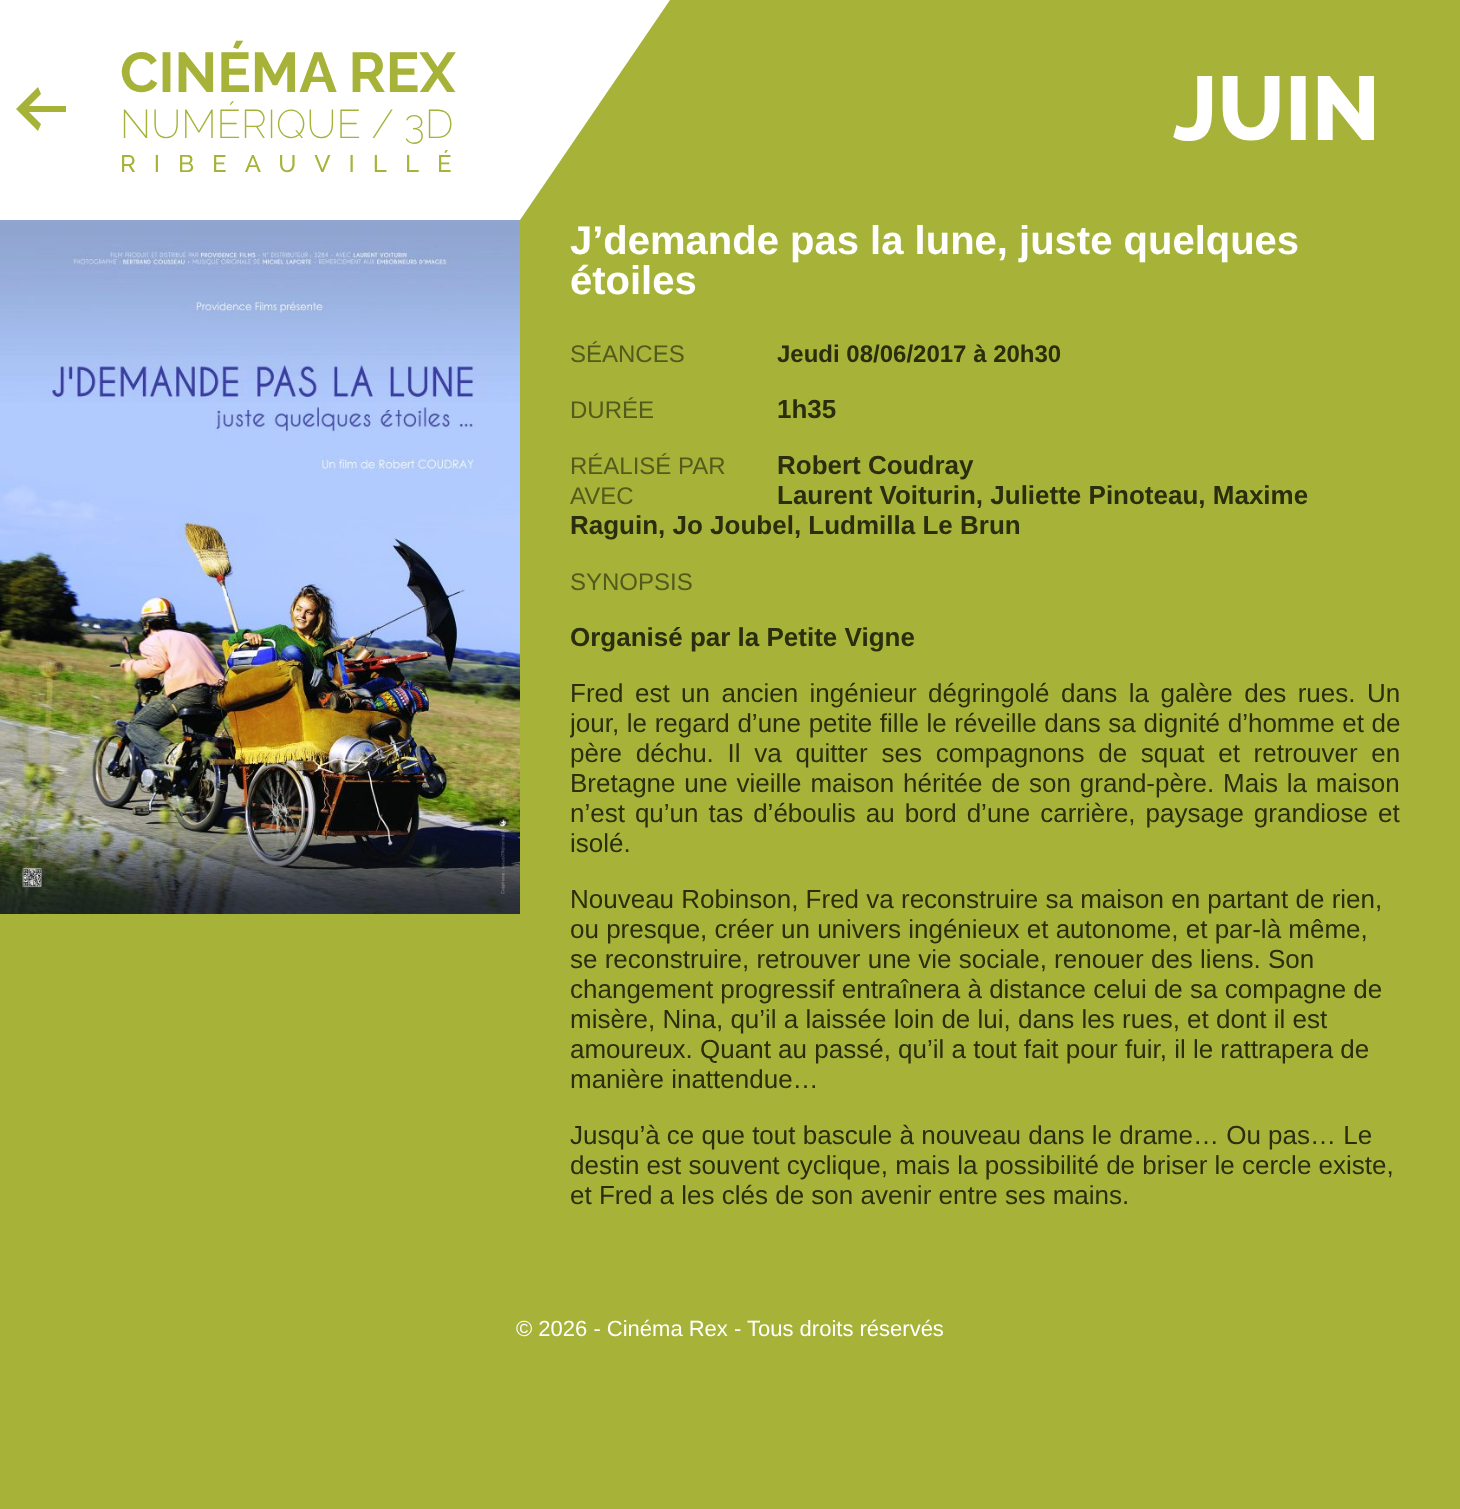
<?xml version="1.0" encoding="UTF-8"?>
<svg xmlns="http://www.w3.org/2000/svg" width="1460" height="1509">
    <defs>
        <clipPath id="clip1"><rect x="570" y="220" width="830" height="1016"/></clipPath>
    </defs>
    <rect width="100%" height="100%" fill="#A6B338"/>
    <rect x="0" y="0" width="520" height="220" fill="#FFFFFF"/>
    <path d="M 370 0 H 670 L 520 220 Z" fill="#FFFFFF"/>
    <text x="120" y="92" font-family="Raleway" font-size="56" font-weight="700" fill="#A6B338">CINÉMA REX</text>
    <text x="120" y="138" font-family="Raleway" font-size="40" font-weight="200" fill="#A6B338">NUMÉRIQUE / 3D</text>
    <text x="120" y="172" font-family="Raleway" font-size="24" font-weight="500" letter-spacing="18" fill="#A6B338">RIBEAUVILLÉ</text>
    <text x="1173" y="140" font-family="Raleway" font-size="90" font-weight="800" fill="#FFFFFF">JUIN</text>
    <path d="M 66 106 V 112 H 29 L 41 124 L 38 131 L 16 109 L 38 87 L 41 94 L 29 106 Z" fill="#A6B338"/>
    <image x="0" y="220" width="520" height="694" href="img_01.png"/>
    <text font-family="Liberation Sans" font-size="40" font-weight="700" fill="#FFFFFF">
        <tspan x="570" y="254">J’demande pas la lune, juste quelques</tspan>
        <tspan x="570" y="294">étoiles</tspan>
    </text>
    <text x="570" y="362" font-family="Liberation Sans" font-size="24" fill="#535A1C">SÉANCES</text>
    <text x="777" y="362" font-family="Liberation Sans" font-size="24" font-weight="700" fill="#2A2D0E">Jeudi 08/06/2017 à 20h30</text>
    <text x="570" y="418" font-family="Liberation Sans" font-size="24" fill="#535A1C">DURÉE</text>
    <text x="777" y="418" font-family="Liberation Sans" font-size="26" font-weight="700" fill="#2A2D0E">1h35</text>
    <text x="570" y="474" font-family="Liberation Sans" font-size="24" fill="#535A1C">RÉALISÉ PAR</text>
    <text x="777" y="474" font-family="Liberation Sans" font-size="26" font-weight="700" fill="#2A2D0E">Robert Coudray</text>
    <text x="570" y="504" font-family="Liberation Sans" font-size="24" fill="#535A1C">AVEC</text>
    <text x="777" y="504" font-family="Liberation Sans" font-size="26" font-weight="700" fill="#2A2D0E">Laurent Voiturin, Juliette Pinoteau, Maxime</text>
    <text x="570" y="534" font-family="Liberation Sans" font-size="26" font-weight="700" fill="#2A2D0E">Raguin, Jo Joubel, Ludmilla Le Brun</text>
    <text x="570" y="590" font-family="Liberation Sans" font-size="24" fill="#535A1C">SYNOPSIS</text>
    <text x="570" y="646" font-family="Liberation Sans" font-size="26" font-weight="700" fill="#2A2D0E">Organisé par la Petite Vigne</text>
    <text x="570" y="702" word-spacing="4.25" font-family="Liberation Sans" font-size="26" fill="#2A2D0E">Fred est un ancien ingénieur dégringolé dans la galère des rues. Un</text>
    <g clip-path="url(#clip1)">
        <text x="570" y="732" word-spacing="0.4" font-family="Liberation Sans" font-size="26" fill="#2A2D0E">jour, le regard d’une petite fille le réveille dans sa dignité d’homme et de</text>
    </g>
    <text font-family="Liberation Sans" font-size="26" fill="#2A2D0E">
        <tspan x="570" y="762" word-spacing="6.5">père déchu. Il va quitter ses compagnons de squat et retrouver en</tspan>
        <tspan x="570" y="792" word-spacing="1.6">Bretagne une vieille maison héritée de son grand-père. Mais la maison</tspan>
        <tspan x="570" y="822" word-spacing="2.75">n’est qu’un tas d’éboulis au bord d’une carrière, paysage grandiose et</tspan>
        <tspan x="570" y="852">isolé.</tspan>
    </text>
    <text font-family="Liberation Sans" font-size="26" fill="#2A2D0E">
        <tspan x="570" y="908">Nouveau Robinson, Fred va reconstruire sa maison en partant de rien,</tspan>
        <tspan x="570" y="938">ou presque, créer un univers ingénieux et autonome, et par-là même,</tspan>
        <tspan x="570" y="968">se reconstruire, retrouver une vie sociale, renouer des liens. Son</tspan>
        <tspan x="570" y="998">changement progressif entraînera à distance celui de sa compagne de</tspan>
        <tspan x="570" y="1028">misère, Nina, qu’il a laissée loin de lui, dans les rues, et dont il est</tspan>
        <tspan x="570" y="1058">amoureux. Quant au passé, qu’il a tout fait pour fuir, il le rattrapera de</tspan>
        <tspan x="570" y="1088">manière inattendue…</tspan>
    </text>
    <text font-family="Liberation Sans" font-size="26" fill="#2A2D0E">
        <tspan x="570" y="1144">Jusqu’à ce que tout bascule à nouveau dans le drame… Ou pas… Le</tspan>
        <tspan x="570" y="1174">destin est souvent cyclique, mais la possibilité de briser le cercle existe,</tspan>
        <tspan x="570" y="1204">et Fred a les clés de son avenir entre ses mains.</tspan>
    </text>
    <text x="516" y="1336" font-family="Liberation Sans" font-size="22" fill="#FFFFFF">© 2026 - Cinéma Rex - Tous droits réservés</text>
</svg>
